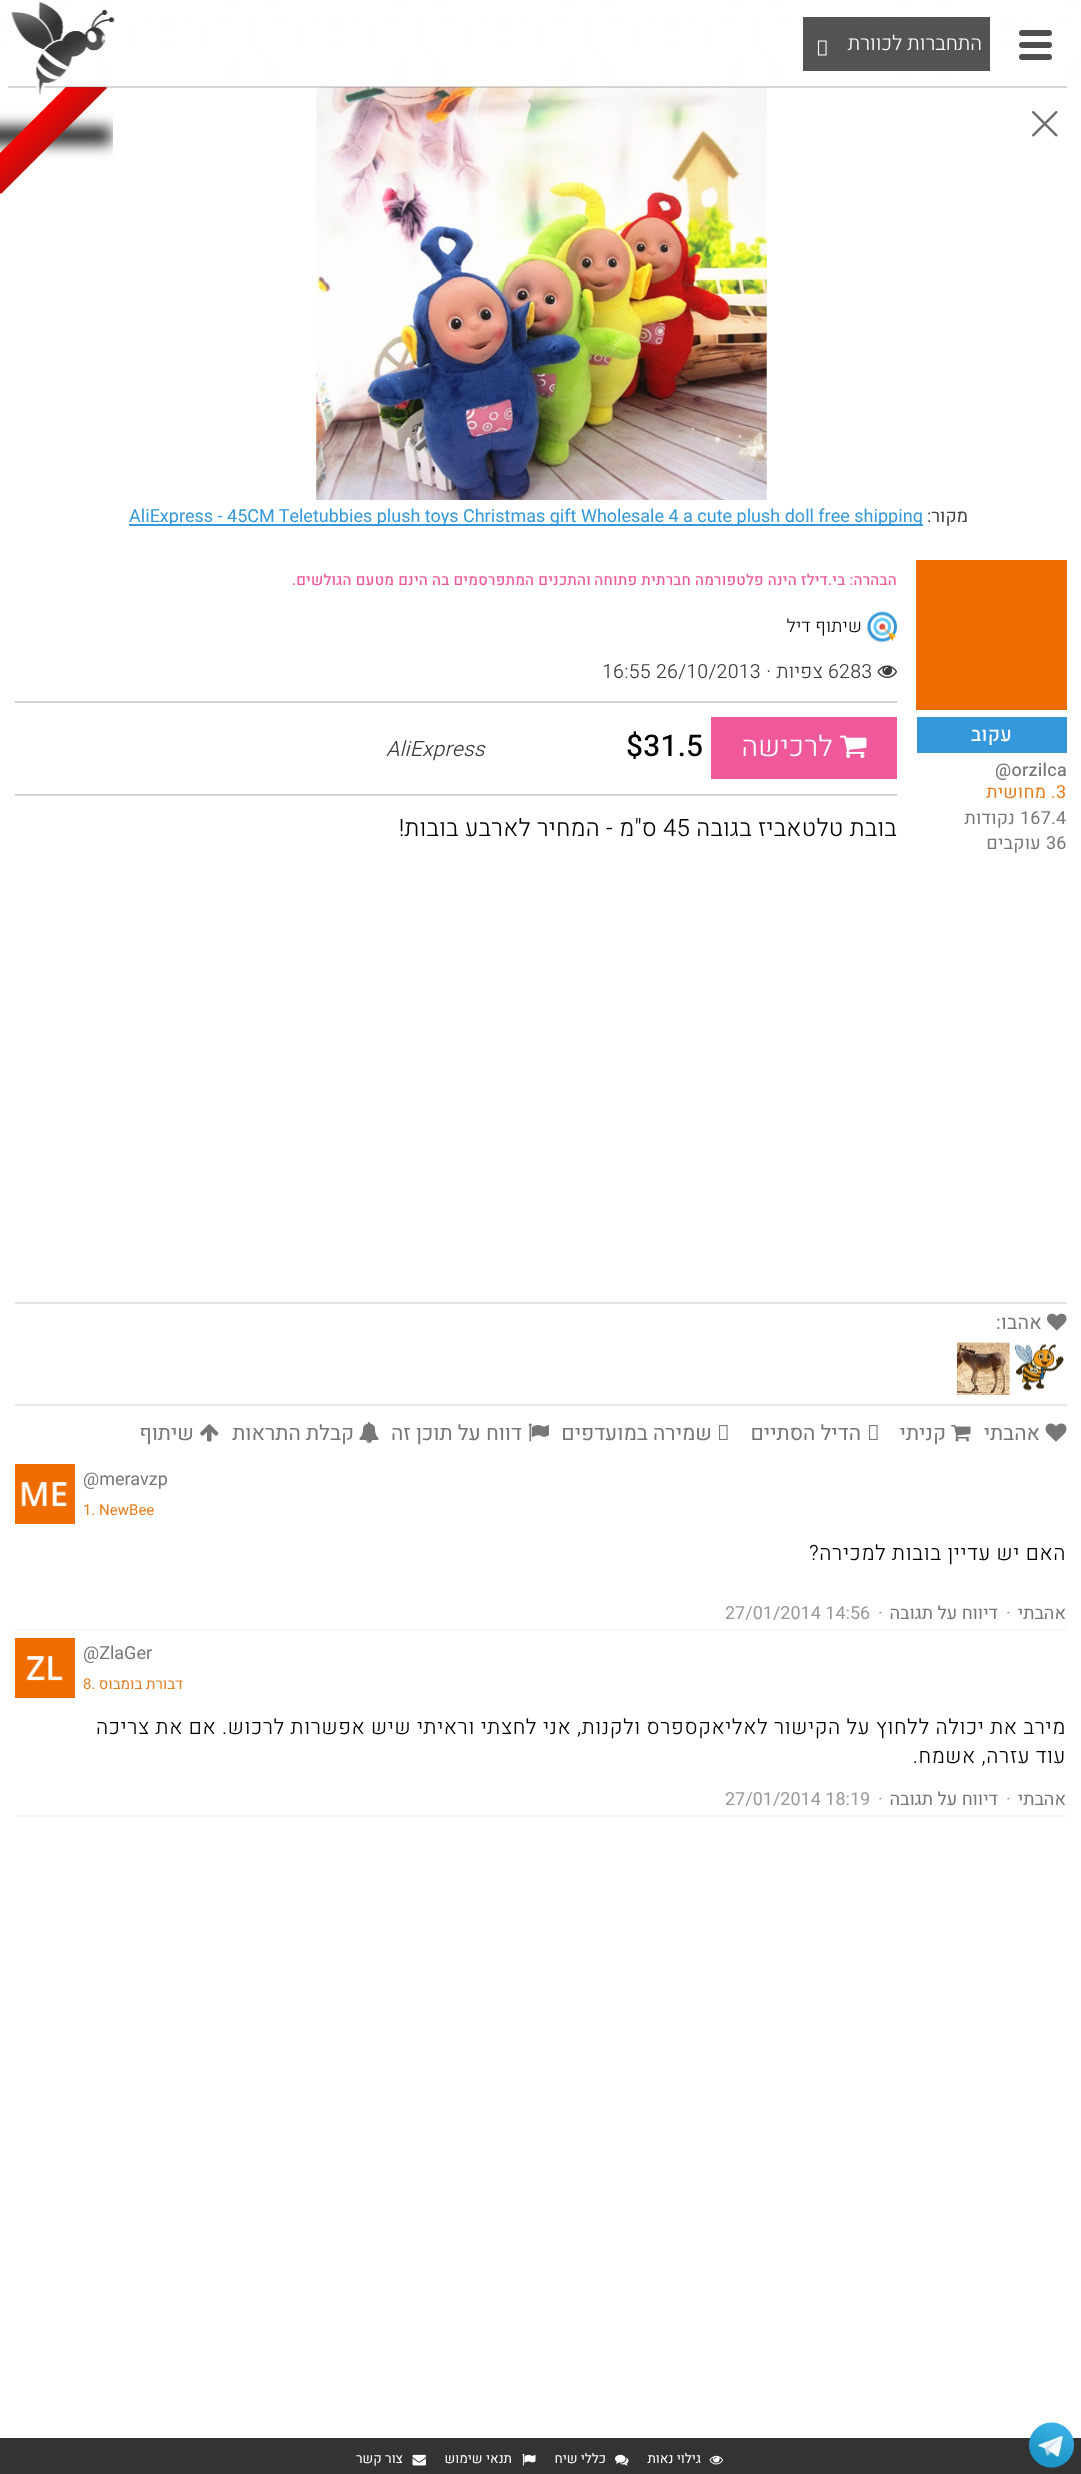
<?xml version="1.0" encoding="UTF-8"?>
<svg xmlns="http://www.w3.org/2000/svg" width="1081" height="2474">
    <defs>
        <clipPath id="clip1"><rect x="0" y="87" width="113" height="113"/></clipPath>
        <filter id="blur1" x="-50%" y="-200%" width="200%" height="500%"><feGaussianBlur stdDeviation="7.5"/></filter>
        <clipPath id="clip2"><rect x="0" y="87" width="113" height="113"/></clipPath>
        <linearGradient id="g1" gradientUnits="userSpaceOnUse" x1="33" y1="120" x2="54" y2="141"><stop offset="0" stop-color="#F70505"/><stop offset="1" stop-color="#C20C0C"/></linearGradient>
    </defs>
    <rect width="100%" height="100%" fill="#FFFFFF"/>
    <image x="0" y="0" width="1081" height="87" href="img_01.png"/>
    <image x="0" y="0" width="1081" height="87" href="img_04.png"/>
    <rect x="0" y="0" width="1081" height="87" fill="#FFFFFF" fill-opacity="0.87"/>
    <rect x="1019" y="30" width="33" height="6" rx="3" fill="#4E4E4E"/>
    <rect x="1019" y="42" width="33" height="6" rx="3" fill="#4E4E4E"/>
    <rect x="1019" y="54" width="33" height="6" rx="3" fill="#4E4E4E"/>
    <image x="316" y="87" width="451" height="413" href="img_05.png"/>
    <image x="316" y="87" width="451" height="413" href="img_06.png"/>
    <g clip-path="url(#clip1)">
        <rect x="-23" y="128" width="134" height="15" fill="#000000" filter="url(#blur1)"/>
    </g>
    <g clip-path="url(#clip2)">
        <path d="M -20 173 L 86 67 L 107 88 L 1 194 Z" fill="url(#g1)"/>
    </g>
    <rect x="8" y="86" width="1059" height="2" fill="#444444" fill-opacity="0.21"/>
    <rect x="803" y="17" width="187" height="54" fill="#535353"/>
    <text x="982" y="50" font-family="Heebo" font-size="20.25" font-weight="300" direction="rtl" fill="#FFFFFF">התחברות לכוורת</text>
    <image x="817" y="40" width="10" height="16" href="img_02.png"/>
    <image x="11" y="2" width="104" height="93" href="img_03.png"/>
    <text x="103" y="164" transform="rotate(-45 103 164)" font-family="Heebo" font-size="16.5" direction="rtl" fill="#FFFFFF">הדיל הסתיים</text>
    <text x="968" y="522" font-family="Heebo" font-size="18" direction="rtl" fill="#414141">מקור:</text>
    <rect x="129" y="524" width="794" height="2" fill="#3498DB"/>
    <text x="129" y="522" font-family="Heebo" font-size="18" fill="#3498DB">AliExpress - 45CM Teletubbies plush toys Christmas gift Wholesale 4 a cute plush doll free shipping</text>
    <text x="897" y="585" font-family="Heebo" font-size="15" font-weight="500" letter-spacing="0.25" direction="rtl" fill="#EF599C">הבהרה: בי.דילז הינה פלטפורמה חברתית פתוחה</text>
    <text x="591" y="585" font-family="Heebo" font-size="15" font-weight="500" letter-spacing="0.25" direction="rtl" fill="#EF599C">והתכנים המתפרסמים בה הינם מטעם הגולשים.</text>
    <image x="867" y="611" width="30" height="32" href="img_07.png"/>
    <text x="862" y="632" font-family="Heebo" font-size="18" font-weight="300" letter-spacing="0.25" direction="rtl" fill="#000000">שיתוף דיל</text>
    <image x="877" y="665" width="20" height="13" href="img_08.png"/>
    <text x="828" y="678" font-family="Heebo" font-size="19.5" font-weight="300" letter-spacing="0.25" fill="#3B3B3B">6283</text>
    <text x="823" y="678" font-family="Heebo" font-size="19.5" font-weight="300" letter-spacing="0.25" direction="rtl" fill="#3B3B3B">צפיות ·</text>
    <text x="602" y="678" font-family="Heebo" font-size="19.5" font-weight="300" letter-spacing="0.25" fill="#3B3B3B">16:55 26/10/2013</text>
    <rect x="15" y="701" width="882" height="2" fill="#D3D3D3"/>
    <rect x="15" y="794" width="882" height="2" fill="#D3D3D3"/>
    <rect x="711" y="717" width="186" height="62" fill="#EF599C"/>
    <image x="840" y="735" width="27" height="23" href="img_09.png"/>
    <text x="833" y="756" font-family="Heebo" font-size="28.5" font-weight="300" letter-spacing="0.25" direction="rtl" fill="#FFFFFF">לרכישה</text>
    <text x="626" y="756" font-family="Heebo" font-size="30" font-weight="500" letter-spacing="0.25" fill="#000000">$31.5</text>
    <text x="386" y="756" font-family="Heebo" font-size="21" font-weight="300" font-style="italic" letter-spacing="0.25" fill="#3B3B3B">AliExpress</text>
    <rect x="916" y="560" width="151" height="150" fill="#EF6C00"/>
    <rect x="917" y="717" width="150" height="36" fill="#3498DB"/>
    <text x="1012" y="741" font-family="Heebo" font-size="19.5" font-weight="500" letter-spacing="0.25" direction="rtl" fill="#FFFFFF">עקוב</text>
    <text x="995" y="776" font-family="Heebo" font-size="18" font-weight="500" letter-spacing="0.25" fill="#777777">@orzilca</text>
    <text x="1056" y="798" font-family="Heebo" font-size="18" letter-spacing="0.25" fill="#E67E22">3</text>
    <text x="1056" y="798" font-family="Heebo" font-size="18" letter-spacing="0.25" direction="rtl" fill="#E67E22">. מחושית</text>
    <text x="1020" y="824" font-family="Heebo" font-size="18" letter-spacing="0.25" fill="#777777">167.4</text>
    <text x="1015" y="824" font-family="Heebo" font-size="18" letter-spacing="0.25" direction="rtl" fill="#777777">נקודות</text>
    <text x="1046" y="849" font-family="Heebo" font-size="18" letter-spacing="0.25" fill="#777777">36</text>
    <text x="1041" y="849" font-family="Heebo" font-size="18" letter-spacing="0.25" direction="rtl" fill="#777777">עוקבים</text>
    <text x="897" y="836" font-family="Heebo" font-size="24" font-weight="300" letter-spacing="0.25" direction="rtl" fill="#000000">בובת טלטאביז בגובה</text>
    <text x="663" y="836" font-family="Heebo" font-size="24" font-weight="300" letter-spacing="0.25" fill="#000000">45</text>
    <text x="657" y="836" font-family="Heebo" font-size="24" font-weight="300" letter-spacing="0.25" direction="rtl" fill="#000000">ס"מ - המחיר לארבע בובות!</text>
    <rect x="15" y="1302" width="1052" height="2" fill="#E7E7E7"/>
    <image x="1047" y="1313" width="20" height="18" href="img_10.png"/>
    <text x="1042" y="1329" font-family="Heebo" font-size="19.5" letter-spacing="0.25" direction="rtl" fill="#777777">אהבו:</text>
    <image x="1015" y="1344" width="49" height="47" href="img_11.png"/>
    <image x="956" y="1342" width="54" height="53" href="img_12.png"/>
    <rect x="15" y="1404" width="1052" height="2" fill="#E7E7E7"/>
    <image x="1045" y="1423" width="22" height="19" href="img_13.png"/>
    <text x="1040" y="1440" font-family="Heebo" font-size="21" direction="rtl" fill="#777777">אהבתי</text>
    <image x="951" y="1425" width="20" height="17" href="img_14.png"/>
    <text x="946" y="1440" font-family="Heebo" font-size="21" direction="rtl" fill="#777777">קניתי</text>
    <image x="869" y="1425" width="9" height="15" href="img_15.png"/>
    <text x="861" y="1440" font-family="Heebo" font-size="21" direction="rtl" fill="#777777">הדיל הסתיים</text>
    <image x="719" y="1425" width="9" height="15" href="img_15.png"/>
    <text x="712" y="1440" font-family="Heebo" font-size="21" direction="rtl" fill="#777777">שמירה במועדפים</text>
    <image x="528" y="1423" width="21" height="19" href="img_16.png"/>
    <text x="522" y="1440" font-family="Heebo" font-size="21" direction="rtl" fill="#777777">דווח על תוכן זה</text>
    <image x="359" y="1422" width="20" height="21" href="img_17.png"/>
    <text x="354" y="1440" font-family="Heebo" font-size="21" direction="rtl" fill="#777777">קבלת התראות</text>
    <image x="200" y="1424" width="19" height="18" href="img_18.png"/>
    <text x="194" y="1440" font-family="Heebo" font-size="21" direction="rtl" fill="#777777">שיתוף</text>
    <rect x="15" y="1629" width="1052" height="2" fill="#F7F7F7"/>
    <text x="83" y="1485" font-family="Heebo" font-size="18" fill="#777777">@meravzp</text>
    <image x="15" y="1464" width="60" height="60" href="img_19.png"/>
    <text x="83" y="1515" font-family="Heebo" font-size="15" fill="#E67E22">1. NewBee</text>
    <text x="1066" y="1560" font-family="Heebo" font-size="21" font-weight="300" letter-spacing="0.63" direction="rtl" fill="#000000">האם יש עדיין בובות למכירה?</text>
    <text x="1066" y="1619" font-family="Heebo" font-size="18" direction="rtl" fill="#777777">אהבתי</text>
    <text x="1006" y="1619" font-family="Heebo" font-size="18" fill="#999999">·</text>
    <text x="998" y="1619" font-family="Heebo" font-size="18" direction="rtl" fill="#777777">דיווח על תגובה</text>
    <text x="878" y="1619" font-family="Heebo" font-size="18" fill="#999999">·</text>
    <text x="725" y="1619" font-family="Heebo" font-size="18" fill="#999999">27/01/2014 14:56</text>
    <rect x="15" y="1815" width="1052" height="2" fill="#F7F7F7"/>
    <text x="83" y="1659" font-family="Heebo" font-size="18" fill="#777777">@ZlaGer</text>
    <image x="15" y="1638" width="60" height="60" href="img_20.png"/>
    <text x="183" y="1689" font-family="Heebo" font-size="15" direction="rtl" fill="#E67E22">דבורת בומבוס</text>
    <text x="83" y="1689" font-family="Heebo" font-size="15" fill="#E67E22">8.</text>
    <text font-family="Heebo" font-size="21" font-weight="300" letter-spacing="0.63" direction="rtl" fill="#000000">
        <tspan x="1066" y="1734">מירב את יכולה ללחוץ על הקישור לאליאקספרס ולקנות, אני לחצתי וראיתי שיש אפשרות לרכוש. אם את צריכה</tspan>
        <tspan x="1066" y="1763">עוד עזרה, אשמח.</tspan>
    </text>
    <text x="1066" y="1805" font-family="Heebo" font-size="18" direction="rtl" fill="#777777">אהבתי</text>
    <text x="1006" y="1805" font-family="Heebo" font-size="18" fill="#999999">·</text>
    <text x="998" y="1805" font-family="Heebo" font-size="18" direction="rtl" fill="#777777">דיווח על תגובה</text>
    <text x="878" y="1805" font-family="Heebo" font-size="18" fill="#999999">·</text>
    <text x="725" y="1805" font-family="Heebo" font-size="18" fill="#999999">27/01/2014 18:19</text>
    <image x="1032" y="111" width="26" height="26" href="img_21.png"/>
    <rect x="0" y="2438" width="1081" height="36" fill="#333333"/>
    <image x="1029" y="2422" width="45" height="46" href="img_22.png"/>
    <image x="709" y="2455" width="14" height="10" href="img_23.png"/>
    <text x="701" y="2463" font-family="Heebo" font-size="13.5" direction="rtl" fill="#FFFFFF">גילוי נאות</text>
    <image x="615" y="2454" width="14" height="12" href="img_24.png"/>
    <text x="606" y="2463" font-family="Heebo" font-size="13.5" direction="rtl" fill="#FFFFFF">כללי שיח</text>
    <image x="522" y="2453" width="14" height="13" href="img_25.png"/>
    <text x="512" y="2463" font-family="Heebo" font-size="13.5" direction="rtl" fill="#FFFFFF">תנאי שימוש</text>
    <image x="412" y="2454" width="14" height="12" href="img_26.png"/>
    <text x="403" y="2463" font-family="Heebo" font-size="13.5" direction="rtl" fill="#FFFFFF">צור קשר</text>
</svg>
